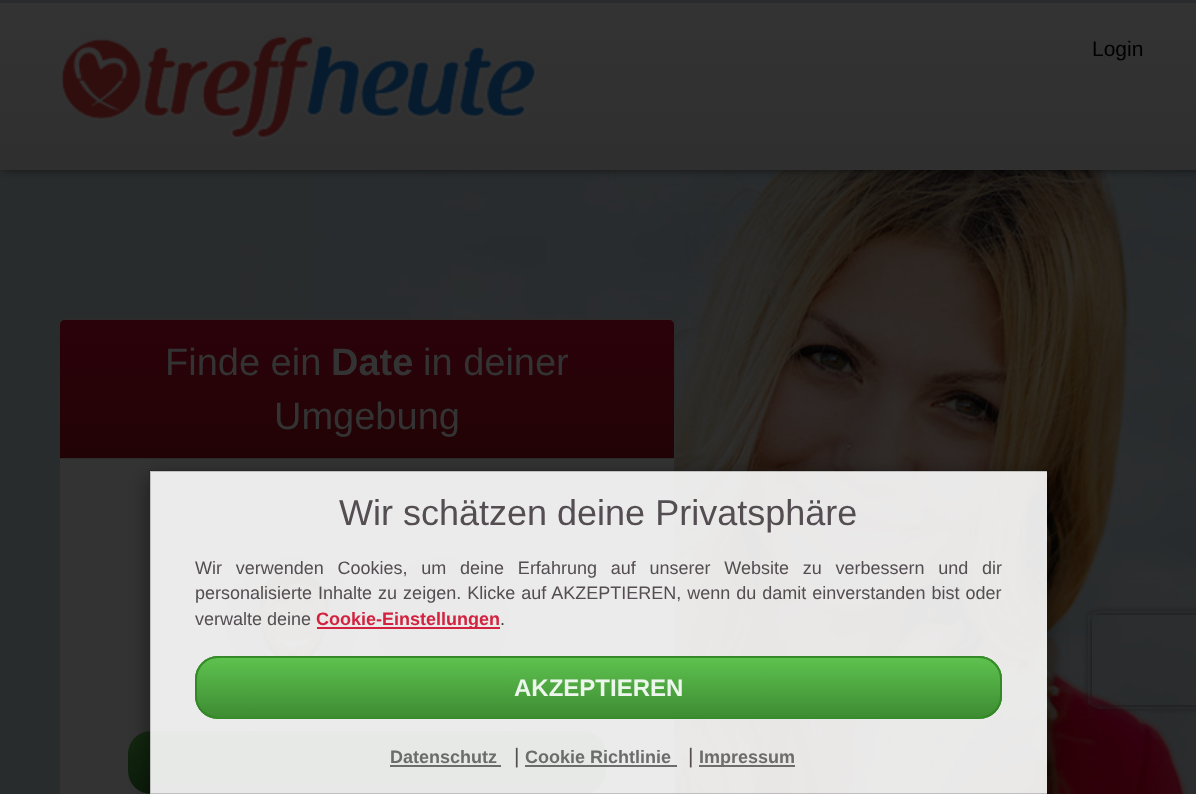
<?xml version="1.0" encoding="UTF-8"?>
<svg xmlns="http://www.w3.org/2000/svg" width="1196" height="794">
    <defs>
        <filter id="blur1" x="-50%" y="-200%" width="200%" height="500%"><feGaussianBlur stdDeviation="6"/></filter>
        <linearGradient id="g1" gradientUnits="userSpaceOnUse" x1="599" y1="3" x2="599" y2="170"><stop offset="0" stop-color="#333333"/><stop offset="1" stop-color="#2F2F2F"/></linearGradient>
        <linearGradient id="g2" gradientUnits="userSpaceOnUse" x1="367" y1="319" x2="367" y2="458"><stop offset="0" stop-color="#2B020A"/><stop offset="1" stop-color="#220305"/></linearGradient>
        <linearGradient id="g3" gradientUnits="userSpaceOnUse" x1="367" y1="731" x2="367" y2="794"><stop offset="0" stop-color="#132810"/><stop offset="1" stop-color="#0C1C0A"/></linearGradient>
        <clipPath id="clip1"><path d="M 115 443 H 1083 V 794 H 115 Z M 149 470 H 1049 V 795 H 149 Z" clip-rule="evenodd"/></clipPath>
        <filter id="blur2" x="-50%" y="-200%" width="200%" height="500%"><feGaussianBlur stdDeviation="11"/></filter>
        <clipPath id="clip2"><rect x="195" y="656" width="807" height="63" rx="23"/></clipPath>
        <linearGradient id="g4" gradientUnits="userSpaceOnUse" x1="599" y1="597" x2="599" y2="657"><stop offset="0" stop-color="#60C851" stop-opacity="0.9"/><stop offset="1" stop-color="#3C8B30" stop-opacity="0.9"/></linearGradient>
        <linearGradient id="g5" gradientUnits="userSpaceOnUse" x1="599" y1="657" x2="599" y2="717"><stop offset="0" stop-color="#60C851" stop-opacity="0.9"/><stop offset="1" stop-color="#3C8B30" stop-opacity="0.9"/></linearGradient>
        <linearGradient id="g6" gradientUnits="userSpaceOnUse" x1="599" y1="717" x2="599" y2="777"><stop offset="0" stop-color="#60C851" stop-opacity="0.9"/><stop offset="1" stop-color="#3C8B30" stop-opacity="0.9"/></linearGradient>
        <clipPath id="clip3"><path d="M 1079 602 H 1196 V 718 H 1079 Z M 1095 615 H 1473 C 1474.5 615 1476 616.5 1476 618 V 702 C 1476 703.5 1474.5 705 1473 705 H 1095 C 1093.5 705 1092 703.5 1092 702 V 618 C 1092 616.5 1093.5 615 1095 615 Z" clip-rule="evenodd"/></clipPath>
        <filter id="blur3" x="-50%" y="-200%" width="200%" height="500%"><feGaussianBlur stdDeviation="4"/></filter>
    </defs>
    <rect width="100%" height="100%" fill="#292C2D"/>
    <image x="241" y="170" width="955" height="624" href="img_02.png"/>
    <rect x="3" y="-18" width="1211" height="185" fill="#0B0B0B" filter="url(#blur1)"/>
    <rect x="0" y="3" width="1196" height="167" fill="url(#g1)"/>
    <rect x="0" y="0" width="1196" height="3" fill="#292C2D"/>
    <image x="60" y="35" width="477" height="105" href="img_01.png"/>
    <text x="1092" y="56" font-family="Liberation Sans" font-size="21" fill="#000000">Login</text>
    <rect x="60" y="319" width="614" height="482" rx="5" fill="none" stroke="#2C2C2C" stroke-width="2"/>
    <path d="M 65 320 H 669 C 672 320 674 322 674 325 V 458 H 60 V 325 C 60 322 62 320 65 320 Z" fill="url(#g2)"/>
    <rect x="60" y="458" width="614" height="1" fill="#2C2C2C"/>
    <text x="165" y="375" font-family="Liberation Sans" font-size="38" fill="#333333">Finde ein</text>
    <text x="331" y="375" font-family="Liberation Sans" font-size="38" font-weight="700" fill="#333333">Date</text>
    <text x="423" y="375" font-family="Liberation Sans" font-size="38" fill="#333333">in deiner</text>
    <text x="274" y="429" font-family="Liberation Sans" font-size="38" fill="#333333">Umgebung</text>
    <rect x="60" y="459" width="614" height="335" fill="#333333"/>
    <image x="226" y="558" width="133" height="128" href="img_03.png"/>
    <image x="376" y="558" width="133" height="128" href="img_04.png"/>
    <rect x="128" y="731" width="478" height="63" rx="23" fill="url(#g3)"/>
    <g clip-path="url(#clip1)">
        <rect x="149" y="477" width="900" height="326" fill="#000000" fill-opacity="0.45" filter="url(#blur2)"/>
    </g>
    <rect x="150" y="471" width="897" height="323" fill="#FFFFFF" fill-opacity="0.9"/>
    <rect x="150" y="471" width="898" height="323" fill="none" stroke="#000000" stroke-opacity="0.18" stroke-width="2"/>
    <text x="339" y="525" font-family="Liberation Sans" font-size="36" fill="#544D51">Wir schätzen deine Privatsphäre</text>
    <text font-family="Liberation Sans" font-size="18" fill="#544D51">
        <tspan x="195" y="574" word-spacing="8.75">Wir verwenden Cookies, um deine Erfahrung auf unserer Website zu verbessern und dir</tspan>
        <tspan x="195" y="599" word-spacing="1">personalisierte Inhalte zu zeigen. Klicke auf AKZEPTIEREN, wenn du damit einverstanden bist oder</tspan>
        <tspan x="195" y="625">verwalte deine</tspan>
    </text>
    <rect x="317" y="627" width="183" height="2" fill="#CF0C2C" fill-opacity="0.9"/>
    <text x="316" y="625" font-family="Liberation Sans" font-size="18" font-weight="700" fill="#D2223F">Cookie-Einstellungen</text>
    <text x="500" y="625" font-family="Liberation Sans" font-size="18" fill="#413B3E">.</text>
    <rect x="195" y="656" width="807" height="63" rx="23" fill="#3C8B30" fill-opacity="0.9"/>
    <g clip-path="url(#clip2)">
        <rect x="211" y="656" width="775" height="1" fill="url(#g4)"/>
        <rect x="195" y="657" width="807" height="60" fill="url(#g5)"/>
        <rect x="208" y="717" width="781" height="2" fill="url(#g6)"/>
    </g>
    <rect x="196" y="657" width="805" height="61" rx="22" fill="none" stroke="#328625" stroke-opacity="0.9" stroke-width="2"/>
    <text x="514" y="696" font-family="Liberation Sans" font-size="24" font-weight="700" fill="#EDF6EC">AKZEPTIEREN</text>
    <text x="390" y="763" font-family="Liberation Sans" font-size="18" font-weight="700" fill="#6C6C6C">Datenschutz</text>
    <rect x="390" y="765" width="111" height="2" fill="#5E5E5E" fill-opacity="0.9"/>
    <text x="514" y="763" font-family="Liberation Sans" font-size="21" fill="#544D51">|</text>
    <text x="525" y="763" font-family="Liberation Sans" font-size="18" font-weight="700" fill="#6C6C6C">Cookie Richtlinie</text>
    <rect x="525" y="765" width="152" height="2" fill="#5E5E5E" fill-opacity="0.9"/>
    <text x="688" y="763" font-family="Liberation Sans" font-size="21" fill="#544D51">|</text>
    <rect x="699" y="765" width="96" height="2" fill="#5E5E5E" fill-opacity="0.9"/>
    <text x="699" y="763" font-family="Liberation Sans" font-size="18" font-weight="700" fill="#6C6C6C">Impressum</text>
    <g clip-path="url(#clip3)">
        <rect x="1092" y="615" width="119" height="90" rx="3" fill="#1A1A1A" filter="url(#blur3)"/>
    </g>
</svg>
